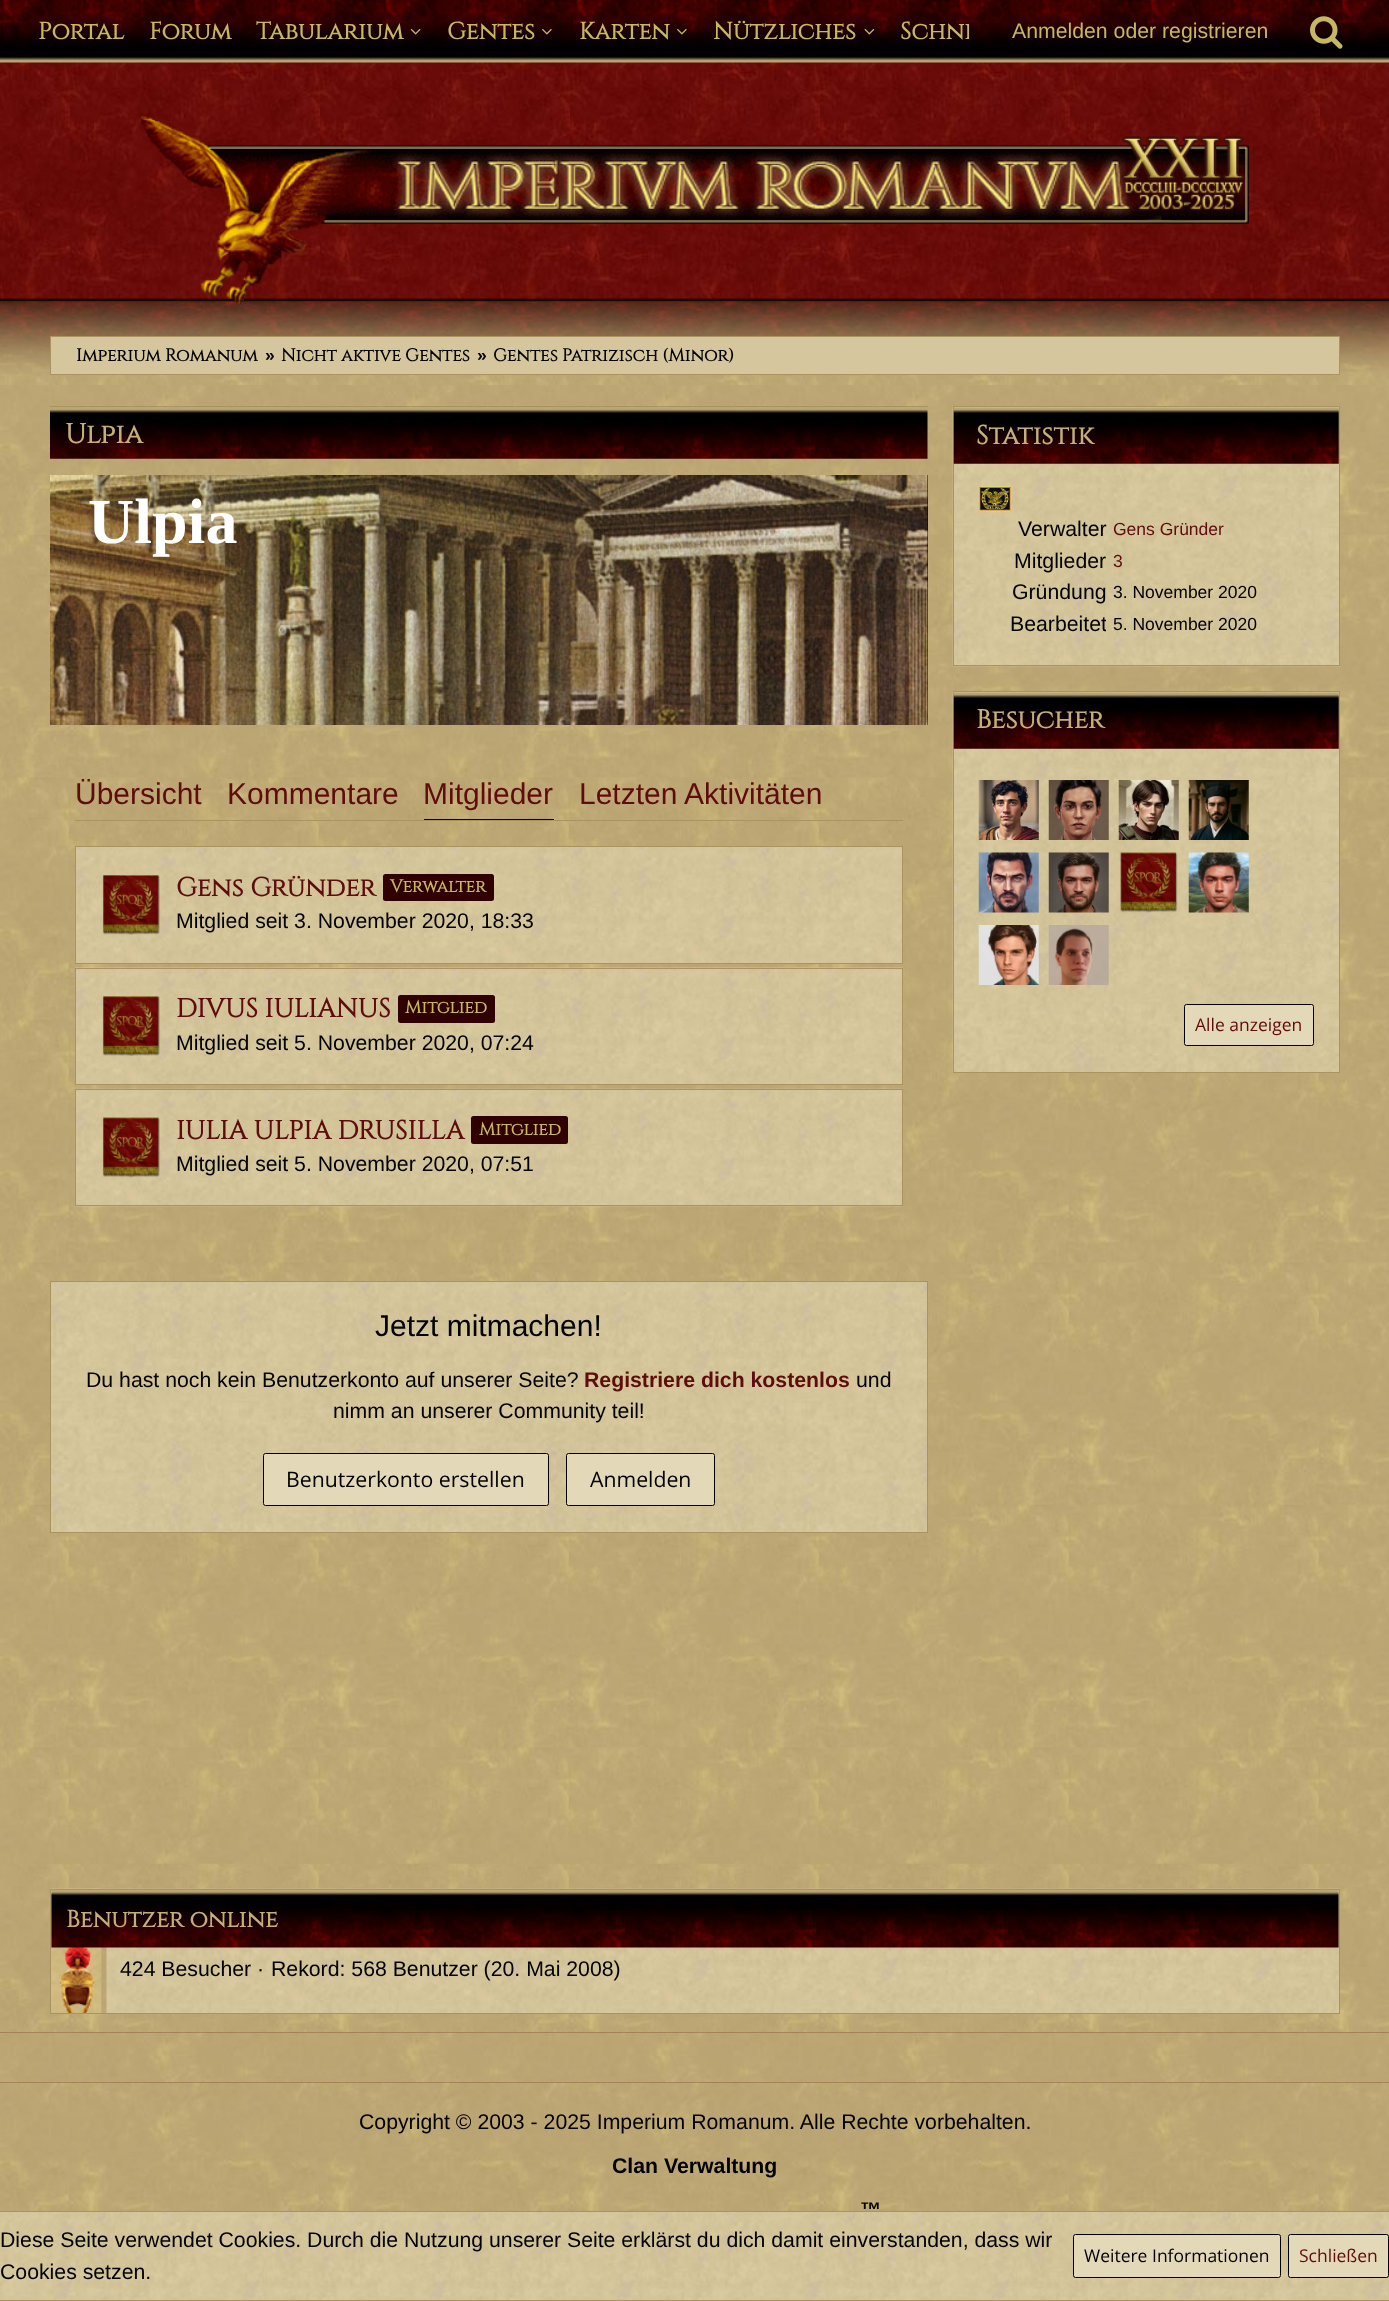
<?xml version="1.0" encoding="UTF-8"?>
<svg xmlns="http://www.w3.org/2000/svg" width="1389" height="2301">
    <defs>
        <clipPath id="clip1"><rect x="25" y="0" width="944" height="63"/></clipPath>
        <clipPath id="clip2"><rect x="979" y="609" width="127" height="31"/></clipPath>
    </defs>
    <rect width="100%" height="100%" fill="#FFFFFF"/>
    <image x="0" y="62" width="1389" height="2021" href="img_01.png"/>
    <image x="0" y="0" width="1389" height="63" href="img_02.png"/>
    <text x="38" y="39" font-family="Cinzel" font-size="23.75" font-weight="700" fill="#C6B763">Portal</text>
    <text x="149" y="39" font-family="Cinzel" font-size="23.75" font-weight="700" fill="#C6B763">Forum</text>
    <text x="256" y="39" font-family="Cinzel" font-size="23.75" font-weight="700" fill="#C6B763">Tabularium</text>
    <image x="410" y="28" width="11" height="7" href="img_03.png"/>
    <text x="447" y="39" font-family="Cinzel" font-size="23.75" font-weight="700" fill="#C6B763">Gentes</text>
    <image x="542" y="28" width="10" height="7" href="img_04.png"/>
    <text x="579" y="39" font-family="Cinzel" font-size="23.75" font-weight="700" fill="#C6B763">Karten</text>
    <image x="677" y="28" width="10" height="7" href="img_05.png"/>
    <text x="713" y="39" font-family="Cinzel" font-size="23.75" font-weight="700" fill="#C6B763">Nützliches</text>
    <image x="864" y="28" width="11" height="7" href="img_06.png"/>
    <g clip-path="url(#clip1)">
        <text x="900" y="39" font-family="Cinzel" font-size="23.75" font-weight="700" fill="#C6B763">Schne</text>
    </g>
    <text x="1012" y="38" font-family="Liberation Sans" font-size="21.25" fill="#C6B763">Anmelden oder registrieren</text>
    <image x="1310" y="16" width="33" height="33" href="img_07.png"/>
    <image x="0" y="298" width="1389" height="87" href="img_09.png"/>
    <image x="141" y="116" width="1108" height="188" href="img_08.png"/>
    <rect x="50.5" y="336.5" width="1289" height="38" fill="#D5C69D" stroke="#A99361"/>
    <text x="76" y="361" font-family="Cinzel" font-size="17.5" font-weight="700" fill="#000000">Imperium Romanum</text>
    <text x="265" y="361" font-family="Liberation Sans" font-size="17.5" font-weight="700" fill="#000000">»</text>
    <text x="281" y="361" font-family="Cinzel" font-size="17.5" font-weight="700" fill="#000000">Nicht aktive Gentes</text>
    <text x="477" y="361" font-family="Liberation Sans" font-size="17.5" font-weight="700" fill="#000000">»</text>
    <text x="493" y="361" font-family="Cinzel" font-size="17.5" font-weight="700" fill="#000000">Gentes Patrizisch (Minor)</text>
    <image x="0" y="385" width="1389" height="1479" href="img_10.png"/>
    <image x="50" y="407" width="878" height="52" href="img_11.png"/>
    <rect x="50" y="406" width="878" height="1" fill="#A99361"/>
    <text x="65" y="443" font-family="Cinzel" font-size="27.5" font-weight="700" fill="#C5AE78">Ulpia</text>
    <rect x="927" y="475" width="1" height="250" fill="#000000"/>
    <image x="50" y="475" width="878" height="250" href="img_12.png"/>
    <text x="88" y="543" font-family="Liberation Serif" font-size="64" font-weight="700" fill="#FFFFFF">Ulpia</text>
    <rect x="75" y="820" width="828" height="1" fill="#A99361"/>
    <text x="75" y="804" font-family="Liberation Sans" font-size="30" fill="#5E0C0C">Übersicht</text>
    <text x="227" y="804" font-family="Liberation Sans" font-size="30" fill="#5E0C0C">Kommentare</text>
    <text x="423" y="804" font-family="Liberation Sans" font-size="30" fill="#5E0C0C">Mitglieder</text>
    <rect x="424" y="819" width="130" height="1" fill="#000000"/>
    <text x="579" y="804" font-family="Liberation Sans" font-size="30" fill="#5E0C0C">Letzten Aktivitäten</text>
    <image x="76" y="847" width="826" height="116" href="img_13.png"/>
    <rect x="75.5" y="846.5" width="827" height="117" fill="none" stroke="#A99361"/>
    <image x="102" y="875" width="58" height="60" href="img_14.png"/>
    <text x="176" y="896" font-family="Cinzel" font-size="26.25" font-weight="700" fill="#5E0C0C">Gens Gründer</text>
    <rect x="383" y="874" width="111" height="27" rx="2.5" fill="#300000"/>
    <text x="390" y="892" font-family="Cinzel" font-size="17.5" font-weight="700" fill="#C6B763">Verwalter</text>
    <text x="176" y="928" font-family="Liberation Sans" font-size="21.25" fill="#000000">Mitglied seit 3. November 2020, 18:33</text>
    <image x="75" y="967" width="828" height="117" href="img_15.png"/>
    <rect x="75.5" y="968.5" width="827" height="116" fill="none" stroke="#A99361"/>
    <image x="102" y="996" width="58" height="60" href="img_16.png"/>
    <text x="176" y="1017" font-family="Cinzel" font-size="26.25" font-weight="700" fill="#5E0C0C">DIVUS IULIANUS</text>
    <rect x="398" y="995" width="97" height="28" rx="2.5" fill="#300000"/>
    <text x="405" y="1013" font-family="Cinzel" font-size="17.5" font-weight="700" fill="#C6B763">Mitglied</text>
    <text x="176" y="1050" font-family="Liberation Sans" font-size="21.25" fill="#000000">Mitglied seit 5. November 2020, 07:24</text>
    <image x="75" y="1088" width="828" height="119" href="img_17.png"/>
    <rect x="75.5" y="1089.5" width="827" height="116" fill="none" stroke="#A99361"/>
    <image x="102" y="1117" width="58" height="61" href="img_18.png"/>
    <text x="176" y="1139" font-family="Cinzel" font-size="26.25" font-weight="700" fill="#5E0C0C">IULIA ULPIA DRUSILLA</text>
    <rect x="471" y="1116" width="97" height="28" rx="2.5" fill="#300000"/>
    <text x="479" y="1135" font-family="Cinzel" font-size="17.5" font-weight="700" fill="#C6B763">Mitglied</text>
    <text x="176" y="1171" font-family="Liberation Sans" font-size="21.25" fill="#000000">Mitglied seit 5. November 2020, 07:51</text>
    <image x="51" y="1282" width="876" height="250" href="img_19.png"/>
    <rect x="50.5" y="1281.5" width="877" height="251" fill="none" stroke="#A99361"/>
    <text x="375" y="1336" font-family="Liberation Sans" font-size="30" fill="#000000">Jetzt mitmachen!</text>
    <text x="86" y="1387" font-family="Liberation Sans" font-size="21.25" fill="#000000">Du hast noch kein Benutzerkonto auf unserer Seite?</text>
    <text x="584" y="1387" font-family="Liberation Sans" font-size="21.25" font-weight="700" fill="#5E0C0C">Registriere dich kostenlos</text>
    <text x="856" y="1387" font-family="Liberation Sans" font-size="21.25" fill="#000000">und</text>
    <text x="333" y="1418" font-family="Liberation Sans" font-size="21.25" fill="#000000">nimm an unserer Community teil!</text>
    <rect x="263.5" y="1453.5" width="285" height="52" rx="2" fill="#E3D8B8" stroke="#000000"/>
    <text x="286" y="1487" font-family="Open Sans" font-size="21.25" fill="#000000">Benutzerkonto erstellen</text>
    <rect x="566.5" y="1453.5" width="148" height="52" rx="2" fill="#E3D8B8" stroke="#000000"/>
    <text x="590" y="1487" font-family="Open Sans" font-size="21.25" fill="#000000">Anmelden</text>
    <image x="952" y="406" width="388" height="261" href="img_20.png"/>
    <rect x="953.5" y="406.5" width="386" height="259" fill="none" stroke="#A99361"/>
    <image x="953" y="407" width="386" height="57" href="img_21.png"/>
    <text x="976" y="444" font-family="Cinzel" font-size="26.25" font-weight="700" fill="#C5AE78">Statistik</text>
    <image x="978" y="486" width="34" height="26" href="img_22.png"/>
    <text x="1018" y="536" font-family="Liberation Sans" font-size="21.25" fill="#000000">Verwalter</text>
    <text x="1113" y="535" font-family="Liberation Sans" font-size="17.5" fill="#5E0C0C">Gens Gründer</text>
    <text x="1014" y="568" font-family="Liberation Sans" font-size="21.25" fill="#000000">Mitglieder</text>
    <text x="1113" y="567" font-family="Liberation Sans" font-size="17.5" fill="#5E0C0C">3</text>
    <text x="1012" y="599" font-family="Liberation Sans" font-size="21.25" fill="#000000">Gründung</text>
    <text x="1113" y="598" font-family="Liberation Sans" font-size="17.5" fill="#000000">3. November 2020</text>
    <g clip-path="url(#clip2)">
        <text x="1010" y="631" font-family="Liberation Sans" font-size="21.25" fill="#000000">Bearbeitet</text>
    </g>
    <text x="1113" y="630" font-family="Liberation Sans" font-size="17.5" fill="#000000">5. November 2020</text>
    <image x="952" y="691" width="387" height="382" href="img_23.png"/>
    <rect x="953.5" y="691.5" width="386" height="381" fill="none" stroke="#A99361"/>
    <image x="953" y="692" width="386" height="57" href="img_24.png"/>
    <text x="976" y="728" font-family="Cinzel" font-size="26.25" font-weight="700" fill="#C5AE78">Besucher</text>
    <image x="978" y="780" width="61" height="60" href="img_25.png"/>
    <image x="1048" y="780" width="61" height="60" href="img_26.png"/>
    <image x="1118" y="780" width="61" height="60" href="img_27.png"/>
    <image x="1188" y="780" width="61" height="60" href="img_28.png"/>
    <image x="978" y="852" width="61" height="61" href="img_29.png"/>
    <image x="1048" y="852" width="61" height="61" href="img_30.png"/>
    <image x="1120" y="852" width="58" height="61" href="img_31.png"/>
    <image x="1188" y="852" width="61" height="61" href="img_32.png"/>
    <image x="978" y="925" width="61" height="60" href="img_33.png"/>
    <image x="1048" y="925" width="61" height="60" href="img_34.png"/>
    <rect x="1184.5" y="1004.5" width="129" height="41" rx="2" fill="#E3D8B8" stroke="#000000"/>
    <text x="1195" y="1031" font-family="Open Sans" font-size="17.5" fill="#5E0C0C">Alle anzeigen</text>
    <image x="0" y="1863" width="1389" height="170" href="img_35.png"/>
    <image x="50" y="1888" width="1290" height="125" href="img_36.png"/>
    <rect x="50.5" y="1889.5" width="1289" height="124" fill="none" stroke="#A99361"/>
    <image x="51" y="1890" width="1288" height="58" href="img_37.png"/>
    <text x="66" y="1927" font-family="Cinzel" font-size="23.75" font-weight="700" fill="#C5AE78">Benutzer online</text>
    <text x="120" y="1976" font-family="Liberation Sans" font-size="21.25" fill="#000000">424 Besucher</text>
    <text x="257" y="1976" font-family="Liberation Sans" font-size="21.25" fill="#000000">·</text>
    <text x="271" y="1976" font-family="Liberation Sans" font-size="21.25" fill="#000000">Rekord: 568 Benutzer (20. Mai 2008)</text>
    <image x="0" y="2032" width="1389" height="51" href="img_38.png"/>
    <image x="0" y="2082" width="1389" height="129" href="img_39.png"/>
    <text x="359" y="2129" font-family="Liberation Sans" font-size="21.25" fill="#000000">Copyright © 2003 - 2025 Imperium Romanum. Alle Rechte vorbehalten.</text>
    <text x="612" y="2173" font-family="Liberation Sans" font-size="21.25" font-weight="700" fill="#000000">Clan Verwaltung</text>
    <text x="860" y="2217" font-family="Liberation Sans" font-size="21.25" font-weight="700" fill="#000000">™</text>
    <image x="0" y="2212" width="1389" height="88" href="img_40.png"/>
    <rect x="0" y="2211" width="1389" height="1" fill="#A99361"/>
    <rect x="0" y="2300" width="1389" height="1" fill="#A99361"/>
    <text font-family="Liberation Sans" font-size="21.25" fill="#000000">
        <tspan x="0" y="2247">Diese Seite verwendet Cookies. Durch die Nutzung unserer Seite erklärst du dich damit einverstanden, dass wir</tspan>
        <tspan x="0" y="2279">Cookies setzen.</tspan>
    </text>
    <rect x="1073.5" y="2234.5" width="207" height="43" rx="2" fill="#E3D8B8" stroke="#000000"/>
    <text x="1084" y="2262" font-family="Open Sans" font-size="17.5" fill="#000000">Weitere Informationen</text>
    <rect x="1288.5" y="2234.5" width="100" height="43" rx="2" fill="#E3D8B8" stroke="#000000"/>
    <text x="1299" y="2262" font-family="Open Sans" font-size="17.5" fill="#5E0C0C">Schließen</text>
</svg>
